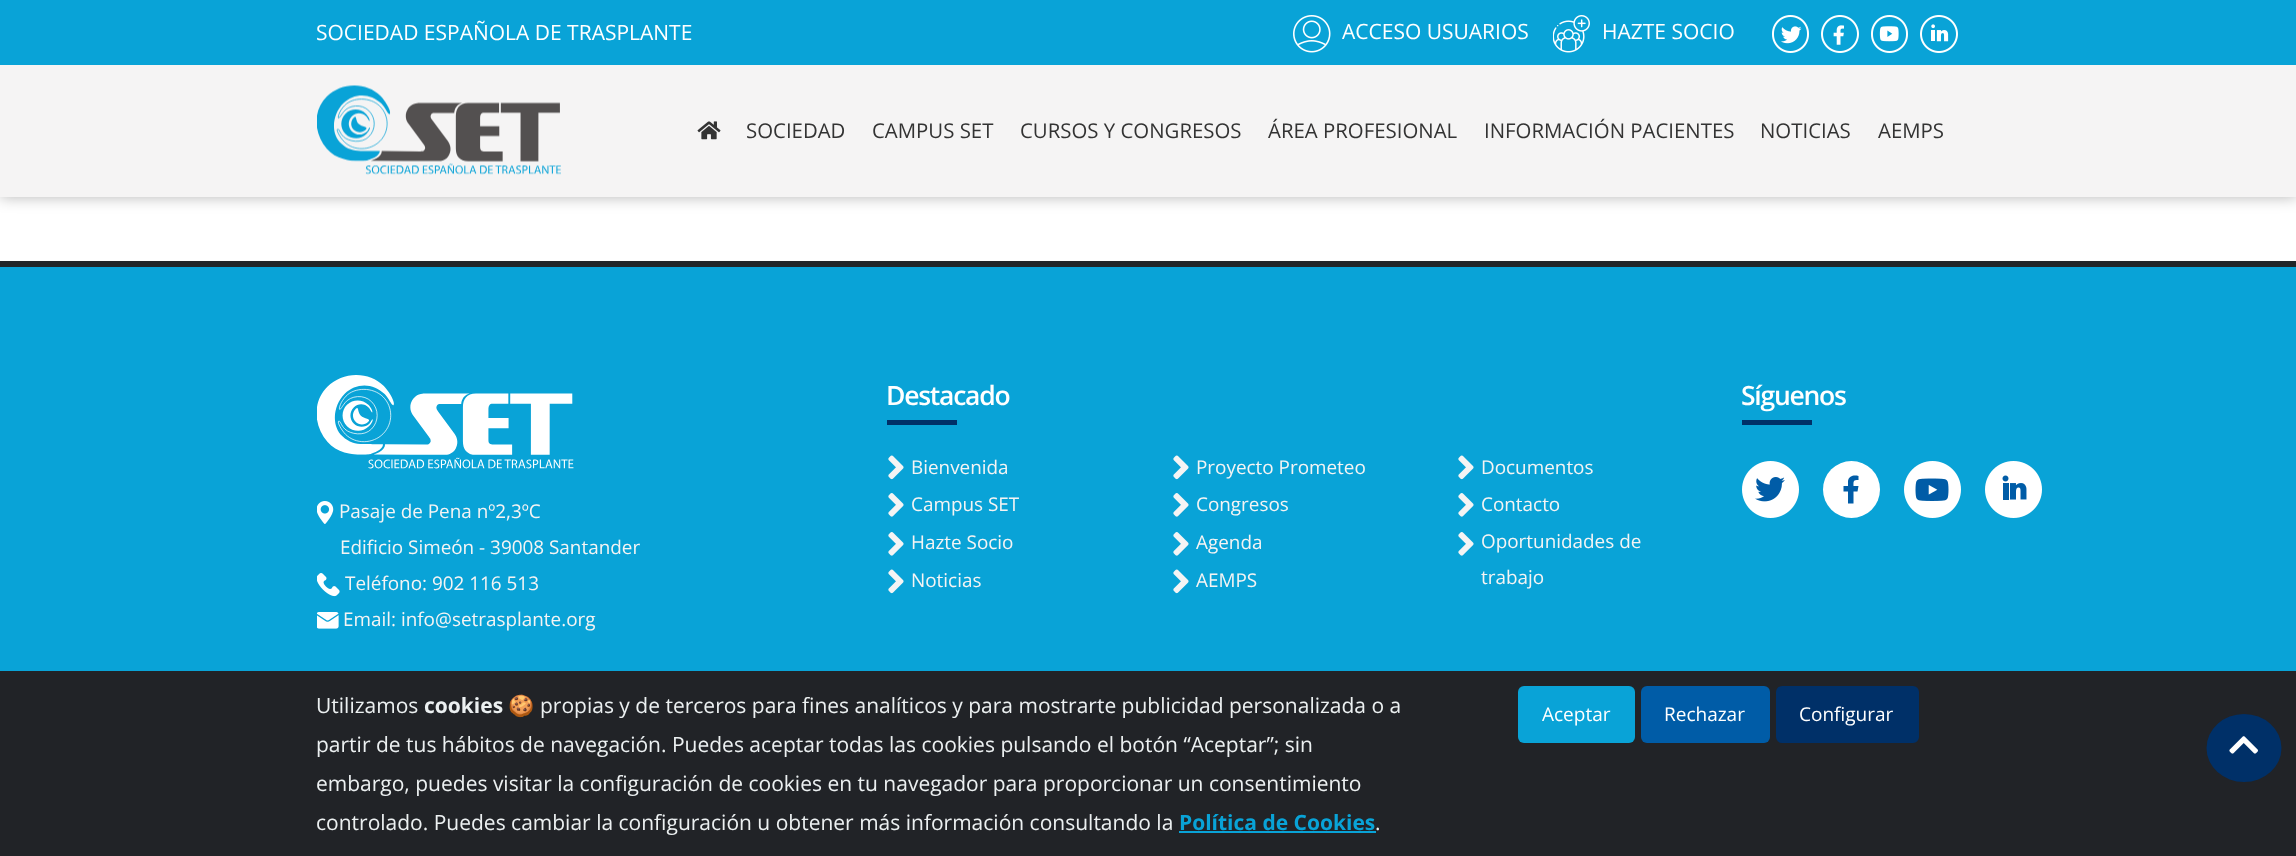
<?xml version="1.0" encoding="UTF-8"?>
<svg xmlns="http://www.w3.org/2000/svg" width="2296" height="856">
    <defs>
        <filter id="blur1" x="-50%" y="-200%" width="200%" height="500%"><feGaussianBlur stdDeviation="7.5"/></filter>
    </defs>
    <rect width="100%" height="100%" fill="#FFFFFF"/>
    <rect x="0" y="0" width="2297" height="197" fill="#000000" fill-opacity="0.29" filter="url(#blur1)"/>
    <rect x="0" y="0" width="2296" height="65" fill="#09A3D7"/>
    <text x="316" y="40" font-family="Open Sans" font-size="21" fill="#FFFFFF">SOCIEDAD ESPAÑOLA DE TRASPLANTE</text>
    <image x="1293" y="15" width="38" height="38" href="img_01.png"/>
    <text x="1342" y="39" font-family="Open Sans" font-size="21" fill="#FFFFFF">ACCESO USUARIOS</text>
    <image x="1553" y="15" width="37" height="38" href="img_02.png"/>
    <text x="1602" y="39" font-family="Open Sans" font-size="21" fill="#FFFFFF">HAZTE SOCIO</text>
    <image x="1772" y="15" width="37" height="38" href="img_03.png"/>
    <image x="1821" y="15" width="38" height="38" href="img_04.png"/>
    <image x="1871" y="15" width="37" height="38" href="img_05.png"/>
    <image x="1920" y="15" width="38" height="38" href="img_06.png"/>
    <rect x="0" y="65" width="2296" height="132" fill="#F5F4F4"/>
    <image x="317" y="85" width="244" height="90" href="img_07.png"/>
    <image x="697" y="121" width="24" height="19" href="img_08.png"/>
    <text x="746" y="138" font-family="Open Sans" font-size="20.4" fill="#333333">SOCIEDAD</text>
    <text x="872" y="138" font-family="Open Sans" font-size="20.4" fill="#333333">CAMPUS SET</text>
    <text x="1020" y="138" font-family="Open Sans" font-size="20.4" fill="#333333">CURSOS Y CONGRESOS</text>
    <text x="1268" y="138" font-family="Open Sans" font-size="20.4" fill="#333333">ÁREA PROFESIONAL</text>
    <text x="1484" y="138" font-family="Open Sans" font-size="20.4" fill="#333333">INFORMACIÓN PACIENTES</text>
    <text x="1760" y="138" font-family="Open Sans" font-size="20.4" fill="#333333">NOTICIAS</text>
    <text x="1878" y="138" font-family="Open Sans" font-size="20.4" fill="#333333">AEMPS</text>
    <rect x="0" y="267" width="2296" height="404" fill="#09A3D7"/>
    <rect x="0" y="261" width="2296" height="6" fill="#212529"/>
    <text x="886" y="405" font-family="Open Sans" font-size="26.5" font-weight="600" letter-spacing="-1.25" fill="#FFFFFF">Destacado</text>
    <rect x="887" y="420" width="70" height="5" fill="#003068"/>
    <image x="888" y="455" width="16" height="25" href="img_09.png"/>
    <text x="911" y="474" font-family="Open Sans" font-size="18.9" fill="#F5F4F4">Bienvenida</text>
    <image x="888" y="493" width="16" height="24" href="img_10.png"/>
    <text x="911" y="511" font-family="Open Sans" font-size="18.9" fill="#F5F4F4">Campus SET</text>
    <image x="888" y="532" width="16" height="24" href="img_10.png"/>
    <text x="911" y="549" font-family="Open Sans" font-size="18.9" fill="#F5F4F4">Hazte Socio</text>
    <image x="888" y="569" width="16" height="25" href="img_09.png"/>
    <text x="911" y="587" font-family="Open Sans" font-size="18.9" fill="#F5F4F4">Noticias</text>
    <image x="1173" y="455" width="16" height="25" href="img_09.png"/>
    <text x="1196" y="474" font-family="Open Sans" font-size="18.9" fill="#F5F4F4">Proyecto Prometeo</text>
    <image x="1173" y="493" width="16" height="24" href="img_10.png"/>
    <text x="1196" y="511" font-family="Open Sans" font-size="18.9" fill="#F5F4F4">Congresos</text>
    <image x="1173" y="532" width="16" height="24" href="img_10.png"/>
    <text x="1196" y="549" font-family="Open Sans" font-size="18.9" fill="#F5F4F4">Agenda</text>
    <image x="1173" y="569" width="16" height="25" href="img_09.png"/>
    <text x="1196" y="587" font-family="Open Sans" font-size="18.9" fill="#F5F4F4">AEMPS</text>
    <image x="1458" y="455" width="16" height="25" href="img_09.png"/>
    <text x="1481" y="474" font-family="Open Sans" font-size="18.9" fill="#F5F4F4">Documentos</text>
    <image x="1458" y="493" width="16" height="24" href="img_10.png"/>
    <text x="1481" y="511" font-family="Open Sans" font-size="18.9" fill="#F5F4F4">Contacto</text>
    <image x="1458" y="532" width="16" height="24" href="img_10.png"/>
    <text font-family="Open Sans" font-size="18.9" fill="#F5F4F4">
        <tspan x="1481" y="548">Oportunidades de</tspan>
        <tspan x="1481" y="584">trabajo</tspan>
    </text>
    <text x="1741" y="405" font-family="Open Sans" font-size="26.5" font-weight="600" letter-spacing="-1.25" fill="#FFFFFF">Síguenos</text>
    <rect x="1742" y="420" width="70" height="5" fill="#003068"/>
    <image x="1742" y="461" width="57" height="57" href="img_11.png"/>
    <circle cx="1851.5" cy="489.5" r="28.5" fill="#FFFFFF"/>
    <path d="M 1857.5 491.5 L 1858.5 486 H 1853.5 C 1853.5 481 1853 480 1858.5 480 V 476 C 1854 475 1849 475.5 1848 481 V 486 H 1843.5 V 491.5 H 1848 V 503.5 H 1853.5 V 491.5 Z" fill="#005CA7"/>
    <image x="1904" y="461" width="57" height="57" href="img_12.png"/>
    <image x="1985" y="461" width="57" height="57" href="img_13.png"/>
    <image x="317" y="375" width="257" height="94" href="img_14.png"/>
    <image x="317" y="501" width="17" height="23" href="img_15.png"/>
    <text x="339" y="518" font-family="Open Sans" font-size="18.9" fill="#F5F4F4">Pasaje de Pena nº2,3ºC</text>
    <text x="340" y="554" font-family="Open Sans" font-size="18.9" fill="#F5F4F4">Edificio Simeón - 39008 Santander</text>
    <image x="317" y="573" width="23" height="24" href="img_16.png"/>
    <text x="345" y="590" font-family="Open Sans" font-size="18.9" fill="#F5F4F4">Teléfono: 902 116 513</text>
    <image x="317" y="612" width="22" height="17" href="img_17.png"/>
    <text x="343" y="626" font-family="Open Sans" font-size="18.9" fill="#F5F4F4">Email: info@setrasplante.org</text>
    <rect x="0" y="671" width="2296" height="185" fill="#212327"/>
    <text x="316" y="713" font-family="Open Sans" font-size="21" fill="#ECF0F1">Utilizamos</text>
    <text x="424" y="713" font-family="Open Sans" font-size="21" font-weight="700" fill="#ECF0F1">cookies</text>
    <text x="508" y="713" font-family="Noto Color Emoji" font-size="21" fill="#ECF0F1">🍪</text>
    <text x="540" y="713" font-family="Open Sans" font-size="21" fill="#ECF0F1">propias y de terceros para fines analíticos y para mostrarte publicidad personalizada o a</text>
    <text font-family="Open Sans" font-size="21" fill="#ECF0F1">
        <tspan x="316" y="752">partir de tus hábitos de navegación. Puedes aceptar todas las cookies pulsando el botón “Aceptar”; sin</tspan>
        <tspan x="316" y="791">embargo, puedes visitar la configuración de cookies en tu navegador para proporcionar un consentimiento</tspan>
        <tspan x="316" y="830">controlado. Puedes cambiar la configuración u obtener más información consultando la</tspan>
    </text>
    <text x="1179" y="830" font-family="Open Sans" font-size="21" font-weight="700" fill="#09A3D7">Política de Cookies</text>
    <rect x="1179" y="831" width="197" height="2" fill="#09A3D7"/>
    <text x="1375" y="830" font-family="Open Sans" font-size="21" fill="#ECF0F1">.</text>
    <rect x="1518" y="686" width="117" height="57" rx="6" fill="#09A3D7"/>
    <text x="1542" y="721" font-family="Open Sans" font-size="19" fill="#FFFFFF">Aceptar</text>
    <rect x="1641" y="686" width="129" height="57" rx="6" fill="#005CA7"/>
    <text x="1664" y="721" font-family="Open Sans" font-size="19" fill="#FFFFFF">Rechazar</text>
    <rect x="1776" y="686" width="143" height="57" rx="6" fill="#003068"/>
    <text x="1799" y="721" font-family="Open Sans" font-size="19" fill="#FFFFFF">Configurar</text>
    <ellipse cx="2244" cy="748" rx="37.5" ry="34" fill="#003068"/>
    <image x="2229" y="736" width="29" height="18" href="img_18.png"/>
</svg>
